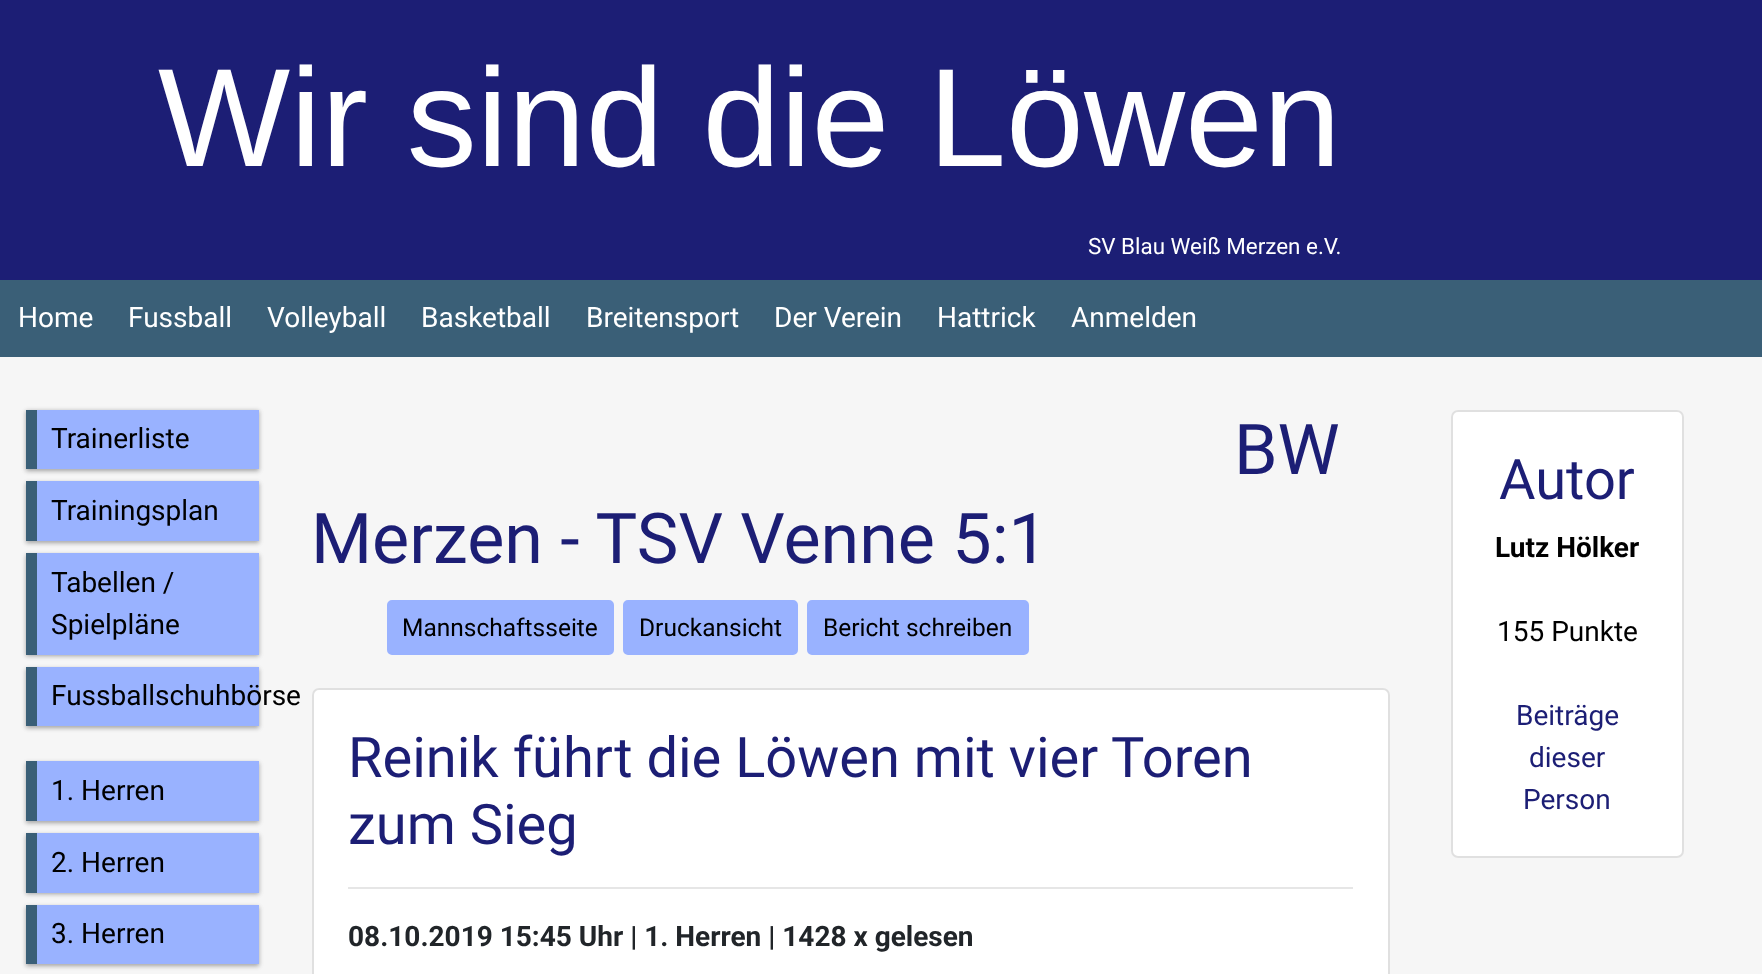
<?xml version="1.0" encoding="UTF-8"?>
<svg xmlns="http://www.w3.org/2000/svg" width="1762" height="974">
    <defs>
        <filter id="blur1" x="-50%" y="-200%" width="200%" height="500%"><feGaussianBlur stdDeviation="2"/></filter>
        <filter id="blur2" x="-50%" y="-200%" width="200%" height="500%"><feGaussianBlur stdDeviation="2.5"/></filter>
    </defs>
    <rect width="100%" height="100%" fill="#F6F6F6"/>
    <rect x="0" y="0" width="1762" height="280" fill="#1C1E75"/>
    <text x="158" y="166" font-family="Liberation Sans" font-size="140" fill="#FFFFFF">Wir sind die Löwen</text>
    <text x="1088" y="254" font-family="Roboto" font-size="22.4" fill="#FFFFFF">SV Blau Weiß Merzen e.V.</text>
    <rect x="0" y="280" width="1762" height="77" fill="#3A5F77"/>
    <text x="18" y="327" font-family="Roboto" font-size="28" fill="#FFFFFF">Home</text>
    <text x="128" y="327" font-family="Roboto" font-size="28" fill="#FFFFFF">Fussball</text>
    <text x="267" y="327" font-family="Roboto" font-size="28" fill="#FFFFFF">Volleyball</text>
    <text x="421" y="327" font-family="Roboto" font-size="28" fill="#FFFFFF">Basketball</text>
    <text x="586" y="327" font-family="Roboto" font-size="28" fill="#FFFFFF">Breitensport</text>
    <text x="774" y="327" font-family="Roboto" font-size="28" fill="#FFFFFF">Der Verein</text>
    <text x="937" y="327" font-family="Roboto" font-size="28" fill="#FFFFFF">Hattrick</text>
    <text x="1071" y="327" font-family="Roboto" font-size="28" fill="#FFFFFF">Anmelden</text>
    <rect x="26" y="411" width="233" height="60" fill="#000000" fill-opacity="0.24" filter="url(#blur1)"/>
    <rect x="26" y="411" width="233" height="60" fill="#000000" fill-opacity="0.12" filter="url(#blur2)"/>
    <rect x="37" y="410" width="222" height="59" fill="#99B2FF"/>
    <rect x="26" y="410" width="11" height="59" fill="#3A5F77"/>
    <text x="51" y="448" font-family="Roboto" font-size="28" fill="#000000">Trainerliste</text>
    <rect x="26" y="483" width="233" height="60" fill="#000000" fill-opacity="0.24" filter="url(#blur1)"/>
    <rect x="26" y="483" width="233" height="60" fill="#000000" fill-opacity="0.12" filter="url(#blur2)"/>
    <rect x="37" y="481" width="222" height="60" fill="#99B2FF"/>
    <rect x="26" y="481" width="11" height="60" fill="#3A5F77"/>
    <text x="51" y="520" font-family="Roboto" font-size="28" fill="#000000">Trainingsplan</text>
    <rect x="26" y="555" width="233" height="101" fill="#000000" fill-opacity="0.24" filter="url(#blur1)"/>
    <rect x="26" y="555" width="233" height="101" fill="#000000" fill-opacity="0.12" filter="url(#blur2)"/>
    <rect x="37" y="553" width="222" height="102" fill="#99B2FF"/>
    <rect x="26" y="553" width="11" height="102" fill="#3A5F77"/>
    <text font-family="Roboto" font-size="28" fill="#000000">
        <tspan x="51" y="592">Tabellen /</tspan>
        <tspan x="51" y="634">Spielpläne</tspan>
    </text>
    <rect x="26" y="669" width="233" height="59" fill="#000000" fill-opacity="0.24" filter="url(#blur1)"/>
    <rect x="26" y="669" width="233" height="59" fill="#000000" fill-opacity="0.12" filter="url(#blur2)"/>
    <rect x="37" y="667" width="222" height="59" fill="#99B2FF"/>
    <rect x="26" y="667" width="11" height="59" fill="#3A5F77"/>
    <text x="51" y="705" font-family="Roboto" font-size="28" fill="#000000">Fussballschuhbörse</text>
    <rect x="26" y="763" width="233" height="60" fill="#000000" fill-opacity="0.24" filter="url(#blur1)"/>
    <rect x="26" y="763" width="233" height="60" fill="#000000" fill-opacity="0.12" filter="url(#blur2)"/>
    <rect x="37" y="761" width="222" height="60" fill="#99B2FF"/>
    <rect x="26" y="761" width="11" height="60" fill="#3A5F77"/>
    <text x="51" y="800" font-family="Roboto" font-size="28" fill="#000000">1. Herren</text>
    <rect x="26" y="835" width="233" height="59" fill="#000000" fill-opacity="0.24" filter="url(#blur1)"/>
    <rect x="26" y="835" width="233" height="59" fill="#000000" fill-opacity="0.12" filter="url(#blur2)"/>
    <rect x="37" y="833" width="222" height="60" fill="#99B2FF"/>
    <rect x="26" y="833" width="11" height="60" fill="#3A5F77"/>
    <text x="51" y="872" font-family="Roboto" font-size="28" fill="#000000">2. Herren</text>
    <rect x="26" y="907" width="233" height="59" fill="#000000" fill-opacity="0.24" filter="url(#blur1)"/>
    <rect x="26" y="907" width="233" height="59" fill="#000000" fill-opacity="0.12" filter="url(#blur2)"/>
    <rect x="37" y="905" width="222" height="59" fill="#99B2FF"/>
    <rect x="26" y="905" width="11" height="59" fill="#3A5F77"/>
    <text x="51" y="943" font-family="Roboto" font-size="28" fill="#000000">3. Herren</text>
    <text x="1234" y="474" font-family="Roboto" font-size="70" fill="#1C1E75">BW</text>
    <text x="311" y="563" font-family="Roboto" font-size="70" fill="#1C1E75">Merzen - TSV Venne 5:1</text>
    <rect x="388" y="601" width="225" height="53" rx="4" fill="#99B2FF" stroke="#99B2FF" stroke-width="2"/>
    <text x="402" y="636" font-family="Roboto" font-size="24.5" fill="#000000">Mannschaftsseite</text>
    <rect x="624" y="601" width="173" height="53" rx="4" fill="#99B2FF" stroke="#99B2FF" stroke-width="2"/>
    <text x="639" y="636" font-family="Roboto" font-size="24.5" fill="#000000">Druckansicht</text>
    <rect x="808" y="601" width="220" height="53" rx="4" fill="#99B2FF" stroke="#99B2FF" stroke-width="2"/>
    <text x="823" y="636" font-family="Roboto" font-size="24.5" fill="#000000">Bericht schreiben</text>
    <rect x="312" y="688" width="1078" height="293" rx="7" fill="#FFFFFF"/>
    <rect x="313" y="689" width="1076" height="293" rx="6" fill="none" stroke="#000000" stroke-opacity="0.12" stroke-width="2"/>
    <text font-family="Roboto" font-size="56" fill="#1C1E75">
        <tspan x="348" y="777">Reinik führt die Löwen mit vier Toren</tspan>
        <tspan x="348" y="844">zum Sieg</tspan>
    </text>
    <rect x="348" y="887" width="1005" height="2" fill="#E6E6E6"/>
    <text x="348" y="946" font-family="Roboto" font-size="28" font-weight="700" fill="#212529">08.10.2019 15:45 Uhr | 1. Herren | 1428 x gelesen</text>
    <rect x="1451" y="410" width="233" height="448" rx="7" fill="#FFFFFF"/>
    <rect x="1452" y="411" width="231" height="446" rx="6" fill="none" stroke="#000000" stroke-opacity="0.12" stroke-width="2"/>
    <text x="1499" y="499" font-family="Roboto" font-size="56" fill="#1C1E75">Autor</text>
    <text x="1495" y="557" font-family="Roboto" font-size="28" font-weight="700" fill="#000000">Lutz Hölker</text>
    <text x="1497" y="641" font-family="Roboto" font-size="28" fill="#000000">155 Punkte</text>
    <text x="1516" y="725" font-family="Roboto" font-size="28" fill="#1C1E75">Beiträge</text>
    <text x="1529" y="767" font-family="Roboto" font-size="28" fill="#1C1E75">dieser</text>
    <text x="1523" y="809" font-family="Roboto" font-size="28" fill="#1C1E75">Person</text>
</svg>
